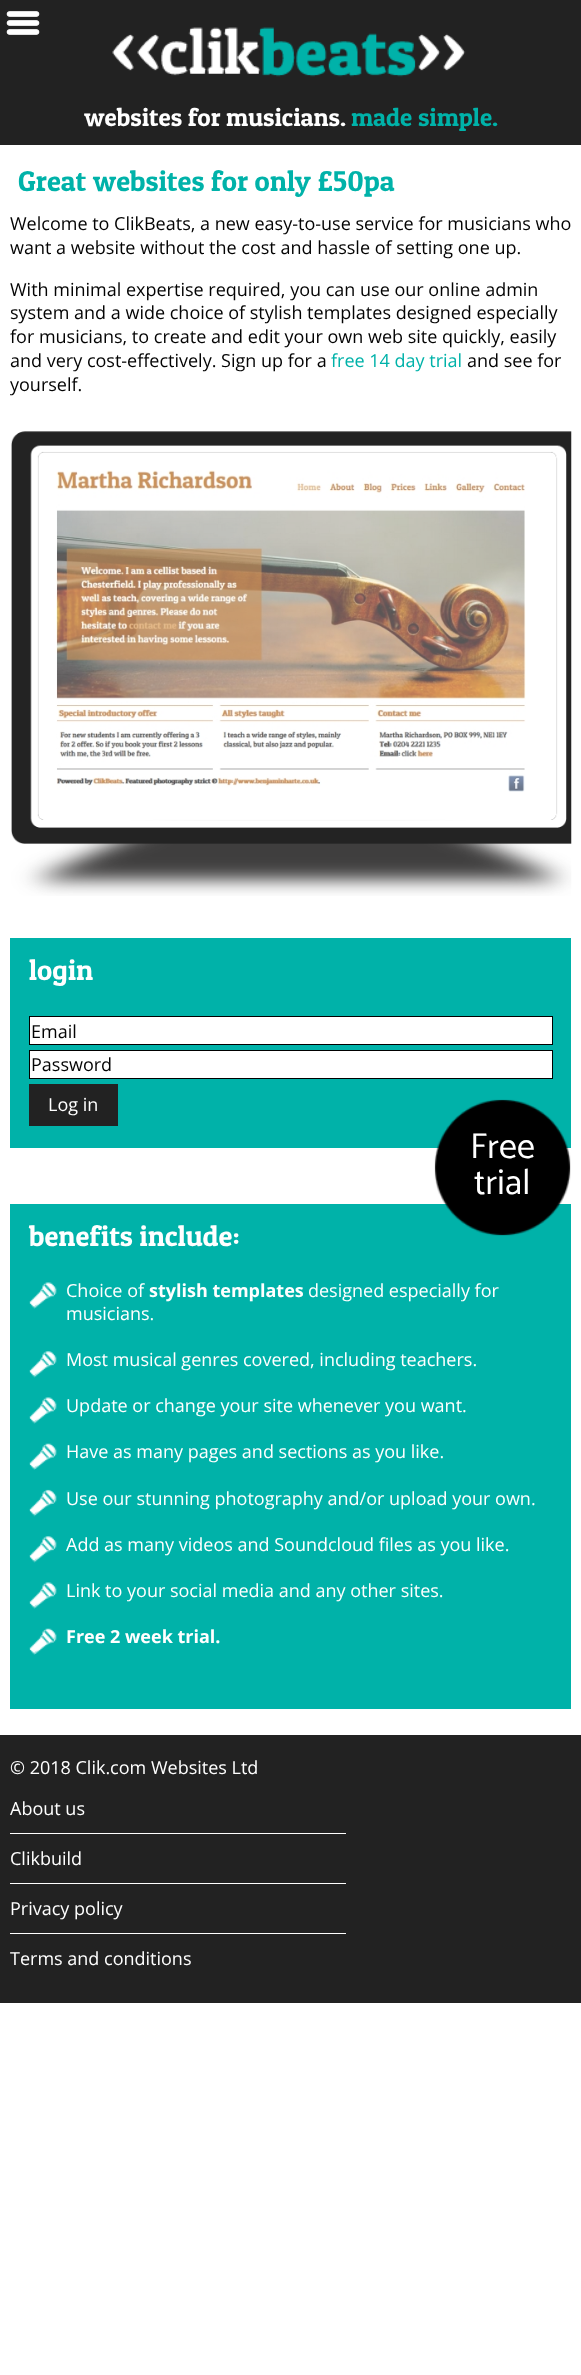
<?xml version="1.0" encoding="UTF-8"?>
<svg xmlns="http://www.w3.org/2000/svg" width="581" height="2375">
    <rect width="100%" height="100%" fill="#FFFFFF"/>
    <rect x="0" y="0" width="581" height="145" fill="#222222"/>
    <image x="6" y="11" width="34" height="24" href="img_01.png"/>
    <image x="112" y="27" width="354" height="50" href="img_02.png"/>
    <text x="84" y="126" font-family="Patua One" font-size="25.25" fill="#FFFFFF">websites for musicians.</text>
    <text x="351" y="126" font-family="Patua One" font-size="25.25" fill="#00B2A9">made simple.</text>
    <text x="18" y="191" font-family="Patua One" font-size="28.75" fill="#00B2A9">Great websites for only £50pa</text>
    <text font-family="Open Sans" font-size="18" fill="#030303">
        <tspan x="10" y="230">Welcome to ClikBeats, a new easy-to-use service for musicians who</tspan>
        <tspan x="10" y="254">want a website without the cost and hassle of setting one up.</tspan>
    </text>
    <text font-family="Open Sans" font-size="18" fill="#030303">
        <tspan x="10" y="296">With minimal expertise required, you can use our online admin</tspan>
        <tspan x="10" y="319">system and a wide choice of stylish templates designed especially</tspan>
        <tspan x="10" y="343">for musicians, to create and edit your own web site quickly, easily</tspan>
        <tspan x="10" y="367">and very cost-effectively. Sign up for a</tspan>
    </text>
    <text x="331" y="367" font-family="Open Sans" font-size="18" fill="#00B2A9">free 14 day trial</text>
    <text x="467" y="367" font-family="Open Sans" font-size="18" fill="#030303">and see for</text>
    <text x="10" y="391" font-family="Open Sans" font-size="18" fill="#030303">yourself.</text>
    <image x="11" y="431" width="561" height="465" href="img_03.png"/>
    <image x="56" y="470" width="470" height="322" href="img_04.png"/>
    <rect x="10" y="938" width="561" height="210" fill="#00B2A9"/>
    <text x="29" y="980" font-family="Patua One" font-size="28.75" fill="#FFFFFF">login</text>
    <rect x="29.5" y="1016.5" width="523" height="28" fill="#FFFFFF" stroke="#000000"/>
    <text x="31" y="1038" font-family="Open Sans" font-size="18" fill="#030303">Email</text>
    <rect x="29.5" y="1050.5" width="523" height="28" fill="#FFFFFF" stroke="#000000"/>
    <text x="31" y="1071" font-family="Open Sans" font-size="18" fill="#030303">Password</text>
    <rect x="29" y="1084" width="89" height="42" fill="#222222"/>
    <text x="48" y="1111" font-family="Open Sans" font-size="18" fill="#FFFFFF">Log in</text>
    <rect x="10" y="1204" width="561" height="505" fill="#00B2A9"/>
    <image x="434" y="1099" width="137" height="137" href="img_05.png"/>
    <text x="470" y="1158" font-family="Catamaran" font-size="36" font-weight="100" fill="#FFFFFF">Free</text>
    <text x="474" y="1194" font-family="Catamaran" font-size="36" font-weight="100" fill="#FFFFFF">trial</text>
    <text x="29" y="1246" font-family="Patua One" font-size="28.75" fill="#FFFFFF">benefits include:</text>
    <image x="29" y="1282" width="28" height="27" href="img_06.png"/>
    <text x="66" y="1297" font-family="Open Sans" font-size="18" fill="#FFFFFF">Choice of</text>
    <text x="149" y="1297" font-family="Open Sans" font-size="18" font-weight="700" fill="#FFFFFF">stylish templates</text>
    <text x="308" y="1297" font-family="Open Sans" font-size="18" fill="#FFFFFF">designed especially for</text>
    <text x="66" y="1320" font-family="Open Sans" font-size="18" fill="#FFFFFF">musicians.</text>
    <image x="29" y="1351" width="28" height="27" href="img_07.png"/>
    <text x="66" y="1366" font-family="Open Sans" font-size="18" fill="#FFFFFF">Most musical genres covered, including teachers.</text>
    <image x="29" y="1397" width="28" height="27" href="img_06.png"/>
    <text x="66" y="1412" font-family="Open Sans" font-size="18" fill="#FFFFFF">Update or change your site whenever you want.</text>
    <image x="29" y="1443" width="28" height="27" href="img_08.png"/>
    <text x="66" y="1458" font-family="Open Sans" font-size="18" fill="#FFFFFF">Have as many pages and sections as you like.</text>
    <image x="29" y="1489" width="28" height="28" href="img_09.png"/>
    <text x="66" y="1505" font-family="Open Sans" font-size="18" fill="#FFFFFF">Use our stunning photography and/or upload your own.</text>
    <image x="29" y="1536" width="28" height="27" href="img_07.png"/>
    <text x="66" y="1551" font-family="Open Sans" font-size="18" fill="#FFFFFF">Add as many videos and Soundcloud files as you like.</text>
    <image x="29" y="1582" width="28" height="27" href="img_06.png"/>
    <text x="66" y="1597" font-family="Open Sans" font-size="18" fill="#FFFFFF">Link to your social media and any other sites.</text>
    <image x="29" y="1628" width="28" height="27" href="img_08.png"/>
    <text x="66" y="1643" font-family="Open Sans" font-size="18" font-weight="700" fill="#FFFFFF">Free 2 week trial.</text>
    <rect x="0" y="1735" width="581" height="268" fill="#222222"/>
    <text x="10" y="1774" font-family="Open Sans" font-size="18" fill="#FFFFFF">© 2018 Clik.com Websites Ltd</text>
    <text x="10" y="1815" font-family="Open Sans" font-size="18" fill="#FFFFFF">About us</text>
    <rect x="10" y="1833" width="336" height="1" fill="#FFFFFF"/>
    <text x="10" y="1865" font-family="Open Sans" font-size="18" fill="#FFFFFF">Clikbuild</text>
    <rect x="10" y="1883" width="336" height="1" fill="#FFFFFF"/>
    <text x="10" y="1915" font-family="Open Sans" font-size="18" fill="#FFFFFF">Privacy policy</text>
    <rect x="10" y="1933" width="336" height="1" fill="#FFFFFF"/>
    <text x="10" y="1965" font-family="Open Sans" font-size="18" fill="#FFFFFF">Terms and conditions</text>
</svg>
